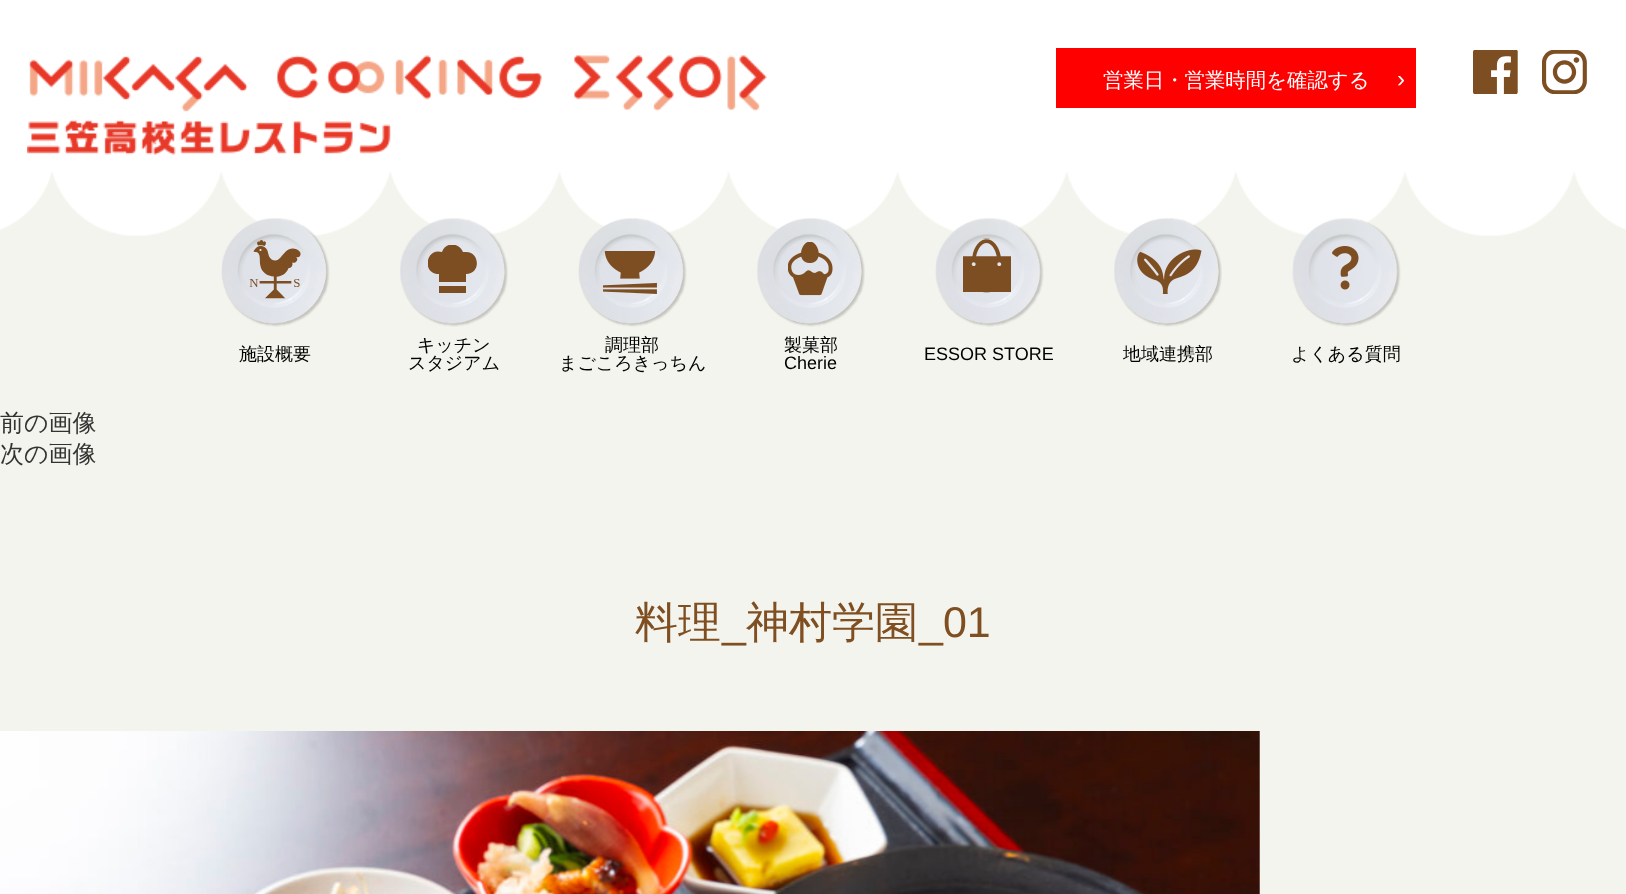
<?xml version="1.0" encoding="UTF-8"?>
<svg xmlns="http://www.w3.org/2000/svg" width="1626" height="894">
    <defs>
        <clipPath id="clip1"><rect x="428" y="245" width="49" height="49"/></clipPath>
    </defs>
    <rect width="100%" height="100%" fill="#F4F4EE"/>
    <image x="0" y="0" width="1626" height="236" href="img_01.png"/>
    <image x="27" y="55" width="740" height="100" href="img_02.png"/>
    <rect x="1056" y="48" width="360" height="60" fill="#FF0000"/>
    <text x="1103" y="87" font-family="WenQuanYi Zen Hei" font-size="20.4" font-weight="500" fill="#FFFFFF">営業日・営業時間を確認する</text>
    <text x="1397" y="87" font-family="Liberation Sans" font-size="24" fill="#FFFFFF">›</text>
    <image x="1473" y="50" width="45" height="44" href="img_03.png"/>
    <image x="1542" y="50" width="45" height="44" href="img_04.png"/>
    <image x="221" y="218" width="109" height="109" href="img_05.png"/>
    <image x="249" y="240" width="52" height="59" href="img_06.png"/>
    <text x="239" y="360" font-family="WenQuanYi Zen Hei" font-size="18" font-weight="500" fill="#000000">施設概要</text>
    <image x="400" y="218" width="108" height="109" href="img_07.png"/>
    <rect x="439" y="286" width="27" height="7" fill="#7D4E22"/>
    <g clip-path="url(#clip1)">
        <path d="M 466 252 H 463 C 459 242 445 242 442 252 C 426 247 421 274 439 274 V 282 H 466 V 274 C 481 274 480 252 466 252 Z" fill="#7D4E22"/>
    </g>
    <text x="417" y="351" font-family="WenQuanYi Zen Hei" font-size="18" font-weight="500" fill="#000000">キッチン</text>
    <text x="408" y="369" font-family="WenQuanYi Zen Hei" font-size="18" font-weight="500" fill="#000000">スタジアム</text>
    <image x="578" y="218" width="109" height="109" href="img_08.png"/>
    <image x="603" y="251" width="54" height="43" href="img_09.png"/>
    <text x="605" y="351" font-family="WenQuanYi Zen Hei" font-size="18" font-weight="500" fill="#000000">調理部</text>
    <text x="559" y="369" font-family="WenQuanYi Zen Hei" font-size="18" font-weight="500" fill="#000000">まごころきっちん</text>
    <image x="757" y="218" width="108" height="109" href="img_10.png"/>
    <image x="788" y="242" width="45" height="54" href="img_11.png"/>
    <text x="784" y="351" font-family="WenQuanYi Zen Hei" font-size="18" font-weight="500" fill="#000000">製菓部</text>
    <text x="784" y="369" font-family="Liberation Sans" font-size="18" fill="#000000">Cherie</text>
    <image x="935" y="218" width="109" height="109" href="img_12.png"/>
    <image x="963" y="238" width="48" height="55" href="img_13.png"/>
    <text x="924" y="360" font-family="Liberation Sans" font-size="18" fill="#000000">ESSOR STORE</text>
    <image x="1114" y="218" width="108" height="109" href="img_14.png"/>
    <image x="1137" y="249" width="65" height="45" href="img_15.png"/>
    <text x="1123" y="360" font-family="WenQuanYi Zen Hei" font-size="18" font-weight="500" fill="#000000">地域連携部</text>
    <image x="1292" y="218" width="109" height="109" href="img_16.png"/>
    <image x="1332" y="246" width="27" height="44" href="img_17.png"/>
    <text x="1291" y="360" font-family="WenQuanYi Zen Hei" font-size="18" font-weight="500" fill="#000000">よくある質問</text>
    <text font-family="WenQuanYi Zen Hei" font-size="24" font-weight="500" fill="#333333">
        <tspan x="0" y="431">前の画像</tspan>
        <tspan x="0" y="462">次の画像</tspan>
    </text>
    <text x="635" y="637" font-family="WenQuanYi Zen Hei" font-size="43" font-weight="500" fill="#7F4F21">料理</text>
    <text x="722" y="637" font-family="Liberation Sans" font-size="43" fill="#7F4F21">_</text>
    <text x="746" y="637" font-family="WenQuanYi Zen Hei" font-size="43" font-weight="500" fill="#7F4F21">神村学園</text>
    <text x="919" y="637" font-family="Liberation Sans" font-size="43" fill="#7F4F21">_01</text>
    <image x="0" y="731" width="1260" height="163" href="img_18.png"/>
</svg>
